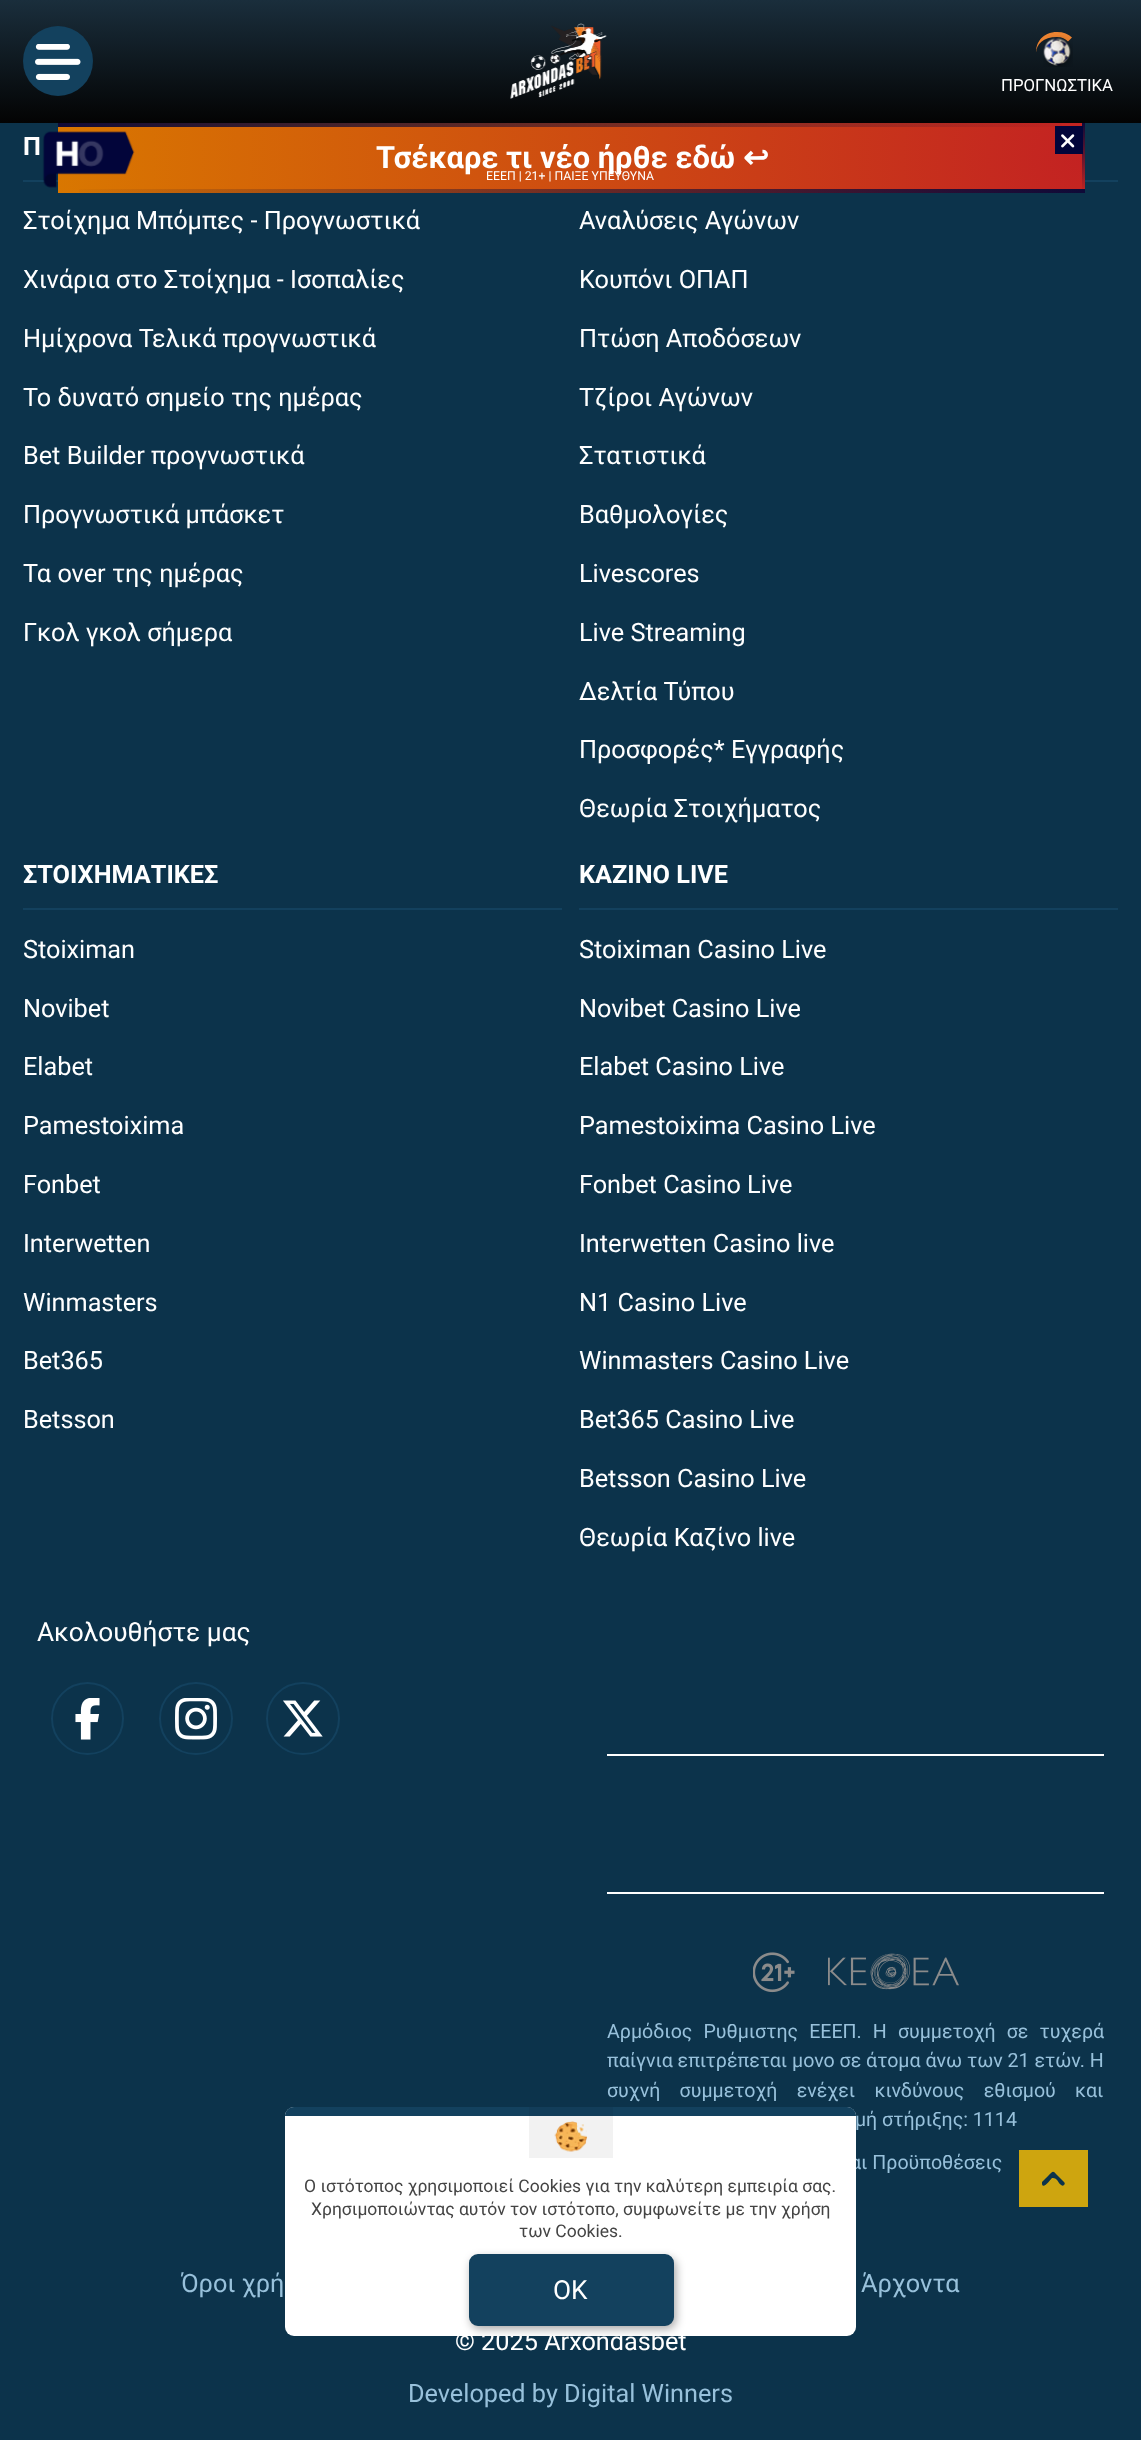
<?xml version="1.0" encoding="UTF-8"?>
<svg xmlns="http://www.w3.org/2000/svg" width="1141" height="2440">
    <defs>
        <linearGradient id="g1" gradientUnits="userSpaceOnUse" x1="571" y1="0" x2="571" y2="123"><stop offset="0" stop-color="#1A2E3C"/><stop offset="1" stop-color="#030303"/></linearGradient>
        <radialGradient id="g2" gradientUnits="userSpaceOnUse" cx="1084" cy="158" r="1028"><stop offset="0" stop-color="#C32222"/><stop offset="1" stop-color="#D97700"/></radialGradient>
        <linearGradient id="g3" gradientUnits="userSpaceOnUse" x1="1084" y1="124" x2="57" y2="124"><stop offset="0" stop-color="#0F0A38" stop-opacity="0"/><stop offset="1" stop-color="#0F0A38"/></linearGradient>
        <linearGradient id="g4" gradientUnits="userSpaceOnUse" x1="1083" y1="193" x2="1083" y2="123"><stop offset="0" stop-color="#0F0A38" stop-opacity="0"/><stop offset="1" stop-color="#0F0A38"/></linearGradient>
        <linearGradient id="g5" gradientUnits="userSpaceOnUse" x1="57" y1="191" x2="1084" y2="191"><stop offset="0" stop-color="#0F0A38" stop-opacity="0"/><stop offset="1" stop-color="#0F0A38"/></linearGradient>
        <filter id="blur1" x="-50%" y="-200%" width="200%" height="500%"><feGaussianBlur stdDeviation="5"/></filter>
        <clipPath id="clip1"><rect x="1019" y="2144" width="70" height="70"/></clipPath>
    </defs>
    <rect width="100%" height="100%" fill="#0C334B"/>
    <rect x="0" y="0" width="1141" height="123" fill="url(#g1)"/>
    <circle cx="58" cy="61" r="35" fill="#13415E"/>
    <image x="35" y="44" width="46" height="36" href="img_01.png"/>
    <image x="510" y="23" width="97" height="76" href="img_02.png"/>
    <path d="M 1057 32 C 1063.5 32 1068.5 34 1072 37.5 L 1068 41.5 C 1065.5 39 1062 37 1057 37 C 1043 37 1036.5 44.5 1036 52.5 C 1036 42 1043 32 1057 32 Z" fill="#EC8331"/>
    <image x="1043" y="35" width="30" height="32" href="img_03.png"/>
    <text x="1001" y="91" font-family="Roboto" font-size="16.75" fill="#FFFFFF">ΠΡΟΓΝΩΣΤΙΚΑ</text>
    <rect x="23" y="180" width="35" height="2" fill="#13415E"/>
    <text x="23" y="155" font-family="Roboto" font-size="25.25" font-weight="700" fill="#FFFFFF">Π</text>
    <text x="23" y="229" font-family="Roboto" font-size="25.25" fill="#FFFFFF">Στοίχημα Μπόμπες - Προγνωστικά</text>
    <text x="23" y="288" font-family="Roboto" font-size="25.25" fill="#FFFFFF">Χινάρια στο Στοίχημα - Ισοπαλίες</text>
    <text x="23" y="347" font-family="Roboto" font-size="25.25" fill="#FFFFFF">Ημίχρονα Τελικά προγνωστικά</text>
    <text x="23" y="406" font-family="Roboto" font-size="25.25" fill="#FFFFFF">Το δυνατό σημείο της ημέρας</text>
    <text x="23" y="464" font-family="Roboto" font-size="25.25" fill="#FFFFFF">Bet Builder προγνωστικά</text>
    <text x="23" y="523" font-family="Roboto" font-size="25.25" fill="#FFFFFF">Προγνωστικά μπάσκετ</text>
    <text x="23" y="582" font-family="Roboto" font-size="25.25" fill="#FFFFFF">Τα over της ημέρας</text>
    <text x="23" y="641" font-family="Roboto" font-size="25.25" fill="#FFFFFF">Γκολ γκολ σήμερα</text>
    <rect x="1085" y="180" width="33" height="2" fill="#13415E"/>
    <text x="579" y="229" font-family="Roboto" font-size="25.25" fill="#FFFFFF">Αναλύσεις Αγώνων</text>
    <text x="579" y="288" font-family="Roboto" font-size="25.25" fill="#FFFFFF">Κουπόνι ΟΠΑΠ</text>
    <text x="579" y="347" font-family="Roboto" font-size="25.25" fill="#FFFFFF">Πτώση Αποδόσεων</text>
    <text x="579" y="406" font-family="Roboto" font-size="25.25" fill="#FFFFFF">Τζίροι Αγώνων</text>
    <text x="579" y="464" font-family="Roboto" font-size="25.25" fill="#FFFFFF">Στατιστικά</text>
    <text x="579" y="523" font-family="Roboto" font-size="25.25" fill="#FFFFFF">Βαθμολογίες</text>
    <text x="579" y="582" font-family="Roboto" font-size="25.25" fill="#FFFFFF">Livescores</text>
    <text x="579" y="641" font-family="Roboto" font-size="25.25" fill="#FFFFFF">Live Streaming</text>
    <text x="579" y="700" font-family="Roboto" font-size="25.25" fill="#FFFFFF">Δελτία Τύπου</text>
    <text x="579" y="758" font-family="Roboto" font-size="25.25" fill="#FFFFFF">Προσφορές* Εγγραφής</text>
    <text x="579" y="817" font-family="Roboto" font-size="25.25" fill="#FFFFFF">Θεωρία Στοιχήματος</text>
    <rect x="23" y="908" width="539" height="2" fill="#13415E"/>
    <text x="23" y="883" font-family="Roboto" font-size="25.25" font-weight="700" fill="#FFFFFF">ΣΤΟΙΧΗΜΑΤΙΚΕΣ</text>
    <text x="23" y="958" font-family="Roboto" font-size="25.25" fill="#FFFFFF">Stoiximan</text>
    <text x="23" y="1017" font-family="Roboto" font-size="25.25" fill="#FFFFFF">Novibet</text>
    <text x="23" y="1075" font-family="Roboto" font-size="25.25" fill="#FFFFFF">Elabet</text>
    <text x="23" y="1134" font-family="Roboto" font-size="25.25" fill="#FFFFFF">Pamestoixima</text>
    <text x="23" y="1193" font-family="Roboto" font-size="25.25" fill="#FFFFFF">Fonbet</text>
    <text x="23" y="1252" font-family="Roboto" font-size="25.25" fill="#FFFFFF">Interwetten</text>
    <text x="23" y="1311" font-family="Roboto" font-size="25.25" fill="#FFFFFF">Winmasters</text>
    <text x="23" y="1369" font-family="Roboto" font-size="25.25" fill="#FFFFFF">Bet365</text>
    <text x="23" y="1428" font-family="Roboto" font-size="25.25" fill="#FFFFFF">Betsson</text>
    <rect x="579" y="908" width="539" height="2" fill="#13415E"/>
    <text x="579" y="883" font-family="Roboto" font-size="25.25" font-weight="700" fill="#FFFFFF">ΚΑΖΙΝΟ LIVE</text>
    <text x="579" y="958" font-family="Roboto" font-size="25.25" fill="#FFFFFF">Stoiximan Casino Live</text>
    <text x="579" y="1017" font-family="Roboto" font-size="25.25" fill="#FFFFFF">Novibet Casino Live</text>
    <text x="579" y="1075" font-family="Roboto" font-size="25.25" fill="#FFFFFF">Elabet Casino Live</text>
    <text x="579" y="1134" font-family="Roboto" font-size="25.25" fill="#FFFFFF">Pamestoixima Casino Live</text>
    <text x="579" y="1193" font-family="Roboto" font-size="25.25" fill="#FFFFFF">Fonbet Casino Live</text>
    <text x="579" y="1252" font-family="Roboto" font-size="25.25" fill="#FFFFFF">Interwetten Casino live</text>
    <text x="579" y="1311" font-family="Roboto" font-size="25.25" fill="#FFFFFF">N1 Casino Live</text>
    <text x="579" y="1369" font-family="Roboto" font-size="25.25" fill="#FFFFFF">Winmasters Casino Live</text>
    <text x="579" y="1428" font-family="Roboto" font-size="25.25" fill="#FFFFFF">Bet365 Casino Live</text>
    <text x="579" y="1487" font-family="Roboto" font-size="25.25" fill="#FFFFFF">Betsson Casino Live</text>
    <text x="579" y="1546" font-family="Roboto" font-size="25.25" fill="#FFFFFF">Θεωρία Καζίνο live</text>
    <text x="37" y="1641" font-family="Roboto" font-size="26.25" fill="#FFFFFF">Ακολουθήστε μας</text>
    <circle cx="87.5" cy="1718.5" r="35.5" fill="none" stroke="#13415E" stroke-width="2"/>
    <image x="75" y="1698" width="25" height="42" href="img_04.png"/>
    <rect x="160" y="1683" width="72" height="71" rx="35.5" fill="none" stroke="#13415E" stroke-width="2"/>
    <image x="175" y="1698" width="42" height="42" href="img_05.png"/>
    <rect x="267" y="1683" width="72" height="71" rx="35.5" fill="none" stroke="#13415E" stroke-width="2"/>
    <image x="283" y="1700" width="40" height="37" href="img_06.png"/>
    <rect x="607" y="1754" width="497" height="2" fill="#FFFFFF"/>
    <rect x="607" y="1892" width="497" height="2" fill="#FFFFFF"/>
    <image x="753" y="1952" width="42" height="41" href="img_07.png"/>
    <image x="828" y="1953" width="131" height="37" href="img_08.png"/>
    <text font-family="Roboto" font-size="19.6" fill="#98C1DB">
        <tspan x="607" y="2038" word-spacing="6.25">Αρμόδιος Ρυθμιστης ΕΕΕΠ. Η συμμετοχή σε τυχερά</tspan>
        <tspan x="607" y="2067">παίγνια επιτρέπεται μονο σε άτομα άνω των 21 ετών. Η</tspan>
        <tspan x="607" y="2097" word-spacing="14.5">συχνή συμμετοχή ενέχει κινδύνους εθισμού και</tspan>
    </text>
    <text x="855" y="2126" font-family="Roboto" font-size="19.6" fill="#98C1DB">μή</text>
    <text x="882" y="2126" font-family="Roboto" font-size="19.6" fill="#98C1DB">στήριξης: 1114</text>
    <text x="850" y="2169" font-family="Roboto" font-size="19.6" fill="#98C1DB">αι Προϋποθέσεις</text>
    <text x="181" y="2292" font-family="Roboto" font-size="25.25" fill="#98C1DB">Όροι χρή</text>
    <text x="861" y="2292" font-family="Roboto" font-size="25.25" fill="#98C1DB">Άρχοντα</text>
    <text x="455" y="2350" font-family="Roboto" font-size="25.25" fill="#FFFFFF">© 2025 Arxondasbet</text>
    <text x="408" y="2402" font-family="Roboto" font-size="25.25" fill="#98C1DB">Developed by Digital Winners</text>
    <rect x="58" y="123" width="1027" height="70" fill="url(#g2)"/>
    <rect x="58" y="123" width="1004" height="4" fill="url(#g3)"/>
    <rect x="1082" y="123" width="3" height="70" fill="url(#g4)"/>
    <rect x="1055" y="126" width="28" height="28" fill="#02053A"/>
    <image x="1061" y="134" width="14" height="14" href="img_09.png"/>
    <image x="42" y="131" width="93" height="57" href="img_10.png"/>
    <text x="376" y="168" font-family="Roboto" font-size="30.75" font-weight="700" fill="#FFFFFF">Τσέκαρε τι νέο ήρθε εδώ</text>
    <text x="743" y="168" font-family="DejaVu Sans" font-size="30.75" font-weight="700" fill="#FFFFFF">↩</text>
    <text x="486" y="180" font-family="Roboto" font-size="12.25" fill="#FFFFFF">ΕΕΕΠ | 21+ | ΠΑΙΞΕ ΥΠΕΥΘΥΝΑ</text>
    <rect x="79" y="189" width="1006" height="4" fill="url(#g5)"/>
    <rect x="285" y="2107" width="571" height="229" rx="9" fill="#FFFFFF"/>
    <path d="M 294 2107 H 847 C 852 2107 856 2111 856 2116 H 285 C 285 2111 289 2107 294 2107 Z" fill="#13415E"/>
    <rect x="529" y="2107" width="84" height="51" fill="#000000" fill-opacity="0.05"/>
    <image x="554" y="2121" width="34" height="31" href="img_11.png"/>
    <text x="304" y="2192" font-family="Roboto" font-size="17.5" fill="#444444">Ο ιστότοπος χρησιμοποιεί Cookies για την καλύτερη εμπειρία σας.</text>
    <text x="311" y="2215" font-family="Roboto" font-size="17.5" fill="#444444">Χρησιμοποιώντας αυτόν τον ιστότοπο, συμφωνείτε με την χρήση</text>
    <text x="519" y="2237" font-family="Roboto" font-size="17.5" fill="#444444">των Cookies.</text>
    <rect x="471" y="2258" width="205" height="71" rx="9" fill="#000000" fill-opacity="0.35" filter="url(#blur1)"/>
    <rect x="470" y="2255" width="203" height="70" rx="8" fill="#13415E" stroke="#13415E" stroke-width="2"/>
    <text x="553" y="2299" font-family="Roboto" font-size="26.25" fill="#FFFFFF">OK</text>
    <g clip-path="url(#clip1)">
        <path d="M 1018 2150 V 2207 H 1088 V 2150 Z M 1064 2185 C 1062 2187 1060 2184 1059 2183 C 1058 2181 1056 2178 1053 2178 H 1052 C 1051 2179 1043 2190 1042 2184 V 2182 L 1049 2175 C 1052 2172 1053 2170 1056 2174 L 1064 2182 C 1065 2183 1065 2184 1064 2185 Z" fill="#CEA50F"/>
    </g>
</svg>
